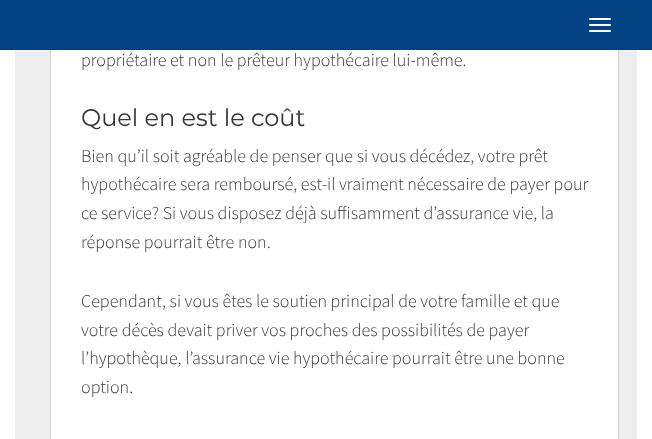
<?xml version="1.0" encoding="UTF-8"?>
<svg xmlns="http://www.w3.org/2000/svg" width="652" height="439">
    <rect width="100%" height="100%" fill="#FFFFFF"/>
    <rect x="15" y="50" width="622" height="389" fill="#EEEEEE"/>
    <rect x="51" y="50" width="567" height="389" fill="#FFFFFF"/>
    <rect x="50.5" y="-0.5" width="568" height="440" fill="none" stroke="#D3D3D3"/>
    <rect x="0" y="0" width="652" height="50" fill="#004282"/>
    <rect x="589" y="18" width="22" height="2" rx="1" fill="#FFFFFF"/>
    <rect x="589" y="24" width="22" height="2" rx="1" fill="#FFFFFF"/>
    <rect x="589" y="30" width="22" height="2" rx="1" fill="#FFFFFF"/>
    <text x="81" y="66" font-family="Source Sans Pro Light" font-size="18" font-weight="300" fill="#363636">propriétaire et non le prêteur hypothécaire lui-même.</text>
    <text x="81" y="126" font-family="Montserrat" font-size="24" fill="#363636">Quel en est le coût</text>
    <text font-family="Source Sans Pro Light" font-size="18" font-weight="300" fill="#363636">
        <tspan x="81" y="162">Bien qu’il soit agréable de penser que si vous décédez, votre prêt</tspan>
        <tspan x="81" y="190">hypothécaire sera remboursé, est-il vraiment nécessaire de payer pour</tspan>
        <tspan x="81" y="219">ce service? Si vous disposez déjà suffisamment d’assurance vie, la</tspan>
        <tspan x="81" y="248">réponse pourrait être non.</tspan>
    </text>
    <text font-family="Source Sans Pro Light" font-size="18" font-weight="300" fill="#363636">
        <tspan x="81" y="307">Cependant, si vous êtes le soutien principal de votre famille et que</tspan>
        <tspan x="81" y="336">votre décès devait priver vos proches des possibilités de payer</tspan>
        <tspan x="81" y="364">l’hypothèque, l’assurance vie hypothécaire pourrait être une bonne</tspan>
        <tspan x="81" y="393">option.</tspan>
    </text>
</svg>
